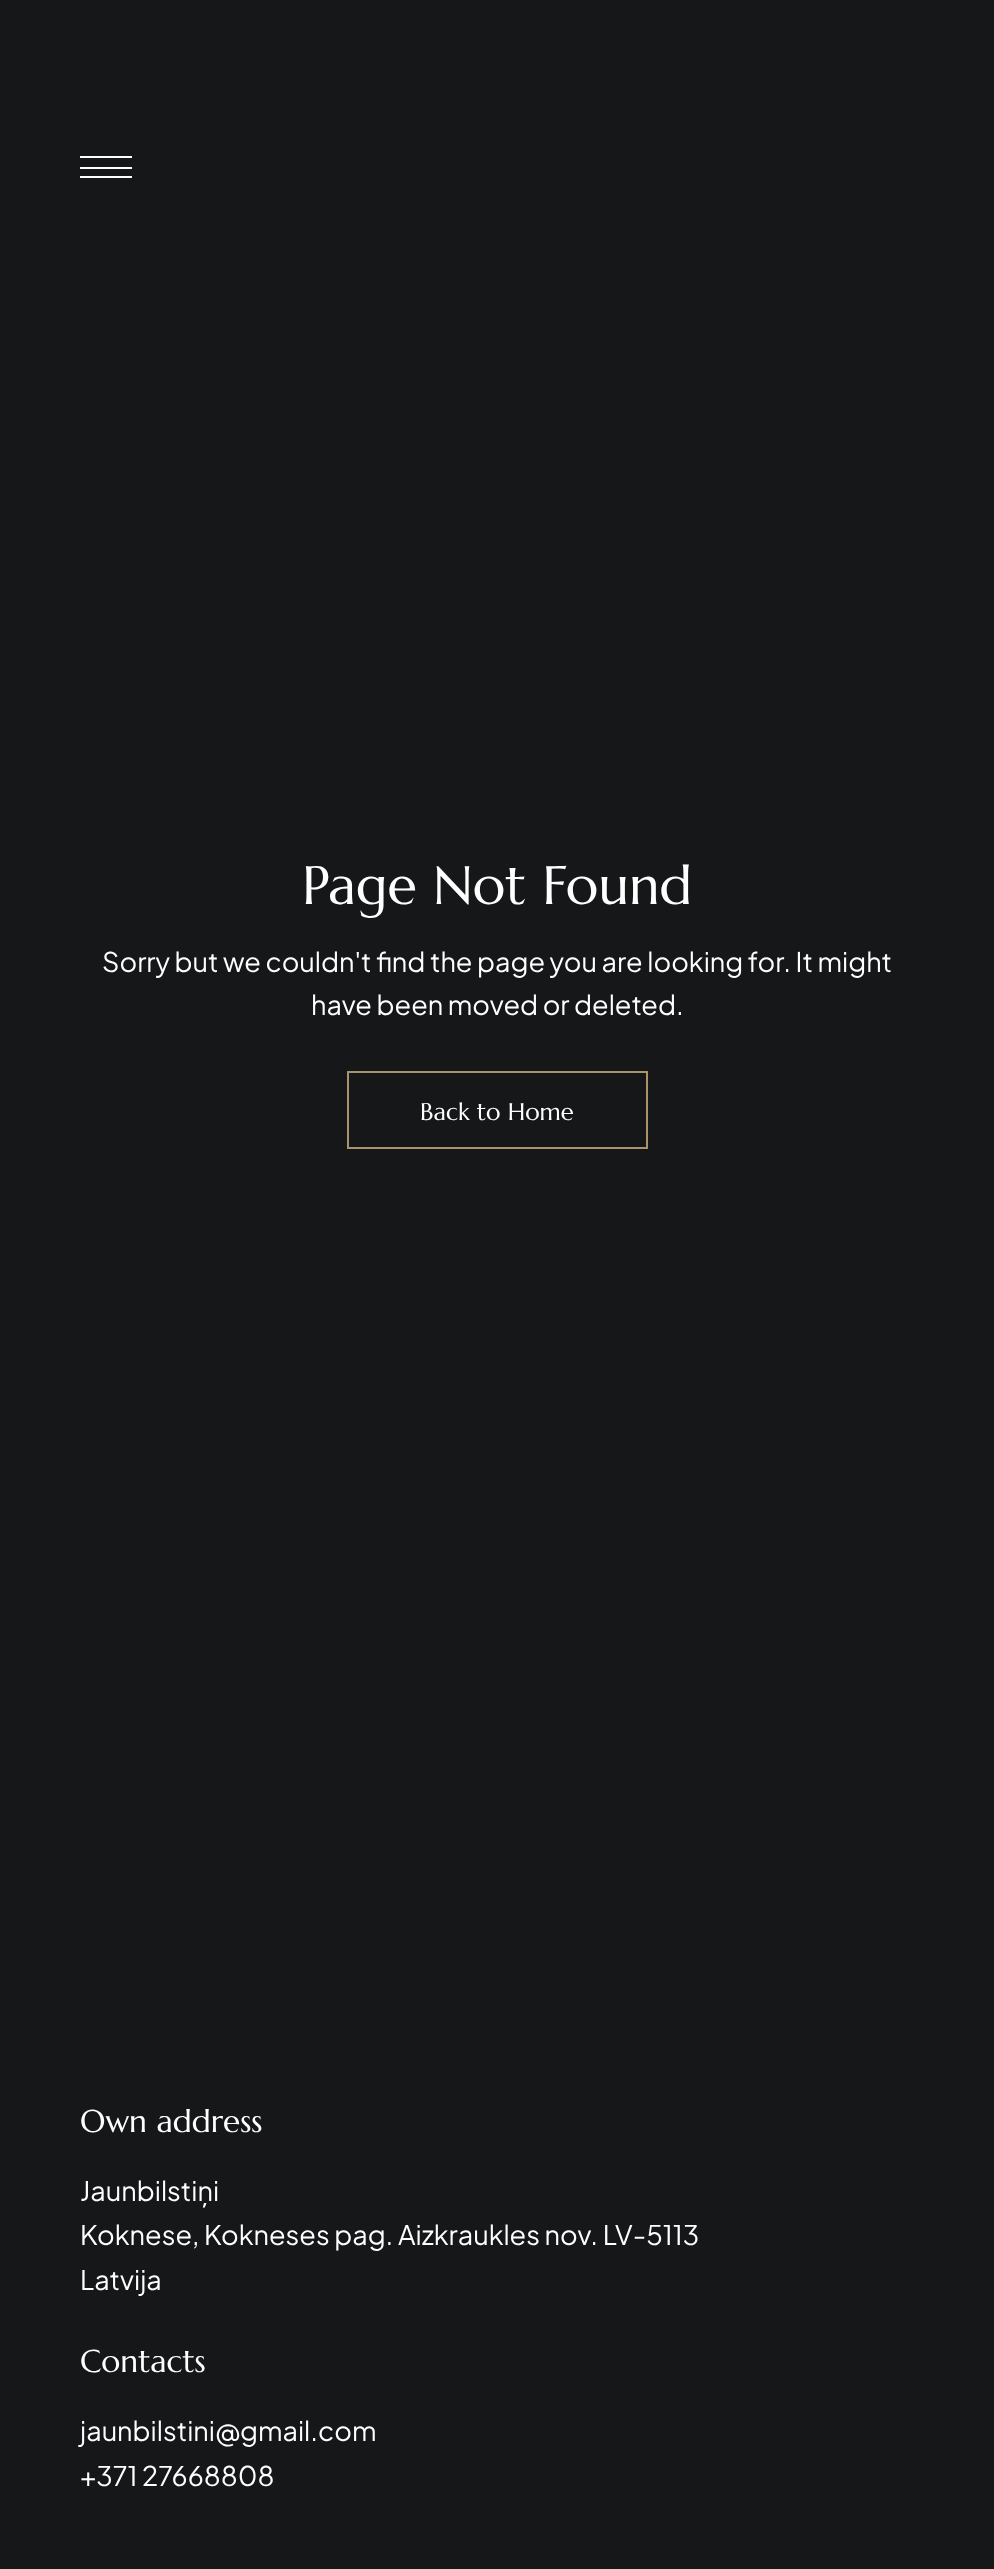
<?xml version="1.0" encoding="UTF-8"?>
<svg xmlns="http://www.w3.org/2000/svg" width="994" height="2569">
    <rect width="100%" height="100%" fill="#151719"/>
    <rect x="80" y="156" width="52" height="2" fill="#FFFFFF"/>
    <rect x="80" y="176" width="52" height="2" fill="#FFFFFF"/>
    <rect x="80" y="167" width="52" height="2" fill="#FFFFFF"/>
    <text x="302" y="904" font-family="Marcellus" font-size="54" fill="#FFFFFF">Page Not Found</text>
    <text x="102" y="972" font-family="Plus Jakarta Sans" font-size="27" fill="#FFFFFF">Sorry but we couldn't find the page you are looking for. It might</text>
    <text x="311" y="1015" font-family="Plus Jakarta Sans" font-size="27" fill="#FFFFFF">have been moved or deleted.</text>
    <rect x="348" y="1072" width="299" height="76" fill="none" stroke="#AB916C" stroke-width="2"/>
    <text x="420" y="1120" font-family="Marcellus" font-size="24" fill="#FFFFFF">Back to Home</text>
    <text x="80" y="2132" font-family="Marcellus" font-size="31.5" fill="#FFFFFF">Own address</text>
    <text font-family="Plus Jakarta Sans" font-size="27" fill="#FFFFFF">
        <tspan x="80" y="2201">Jaunbilstiņi</tspan>
        <tspan x="80" y="2245">Koknese, Kokneses pag. Aizkraukles nov. LV-5113</tspan>
        <tspan x="80" y="2290">Latvija</tspan>
    </text>
    <text x="80" y="2372" font-family="Marcellus" font-size="31.5" fill="#FFFFFF">Contacts</text>
    <text font-family="Plus Jakarta Sans" font-size="27" fill="#FFFFFF">
        <tspan x="80" y="2441">jaunbilstini@gmail.com</tspan>
        <tspan x="80" y="2486">+371 27668808</tspan>
    </text>
</svg>
